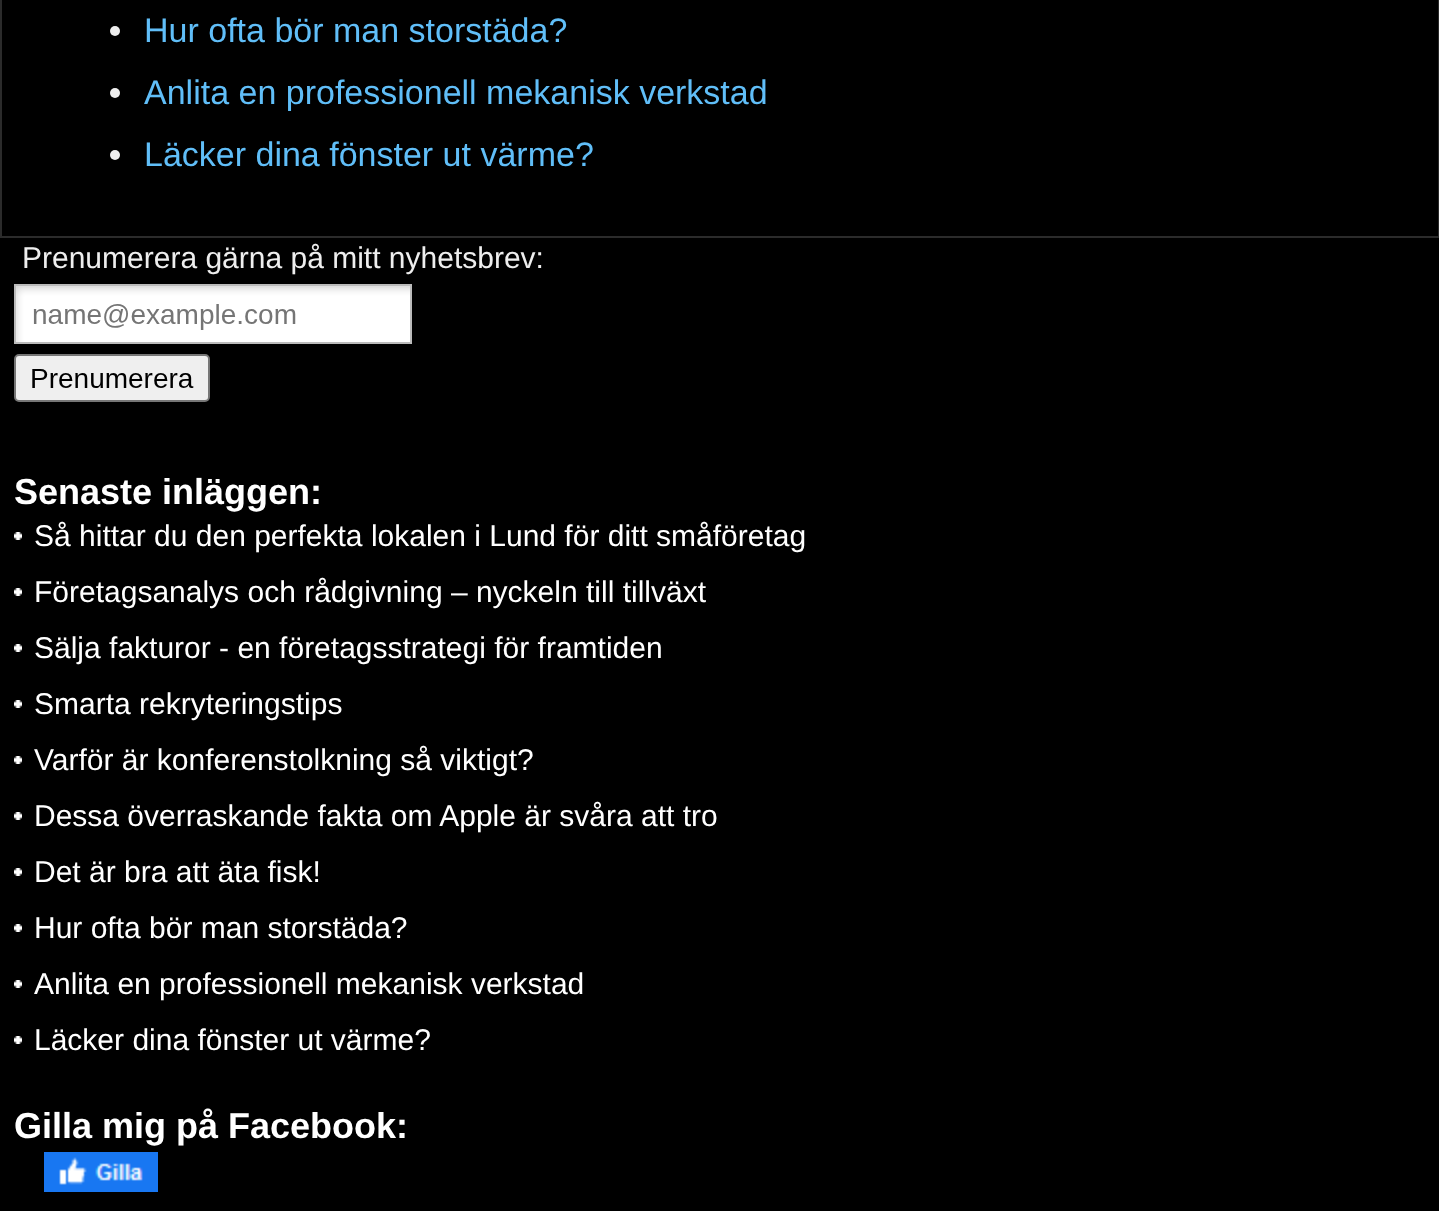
<?xml version="1.0" encoding="UTF-8"?>
<svg xmlns="http://www.w3.org/2000/svg" width="1439" height="1211">
    <rect width="100%" height="100%" fill="#000000"/>
    <rect x="1" y="-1" width="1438" height="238" fill="none" stroke="#2B2B2B" stroke-width="2"/>
    <circle cx="115" cy="31" r="5" fill="#EEEEEE"/>
    <text x="144" y="42" font-family="Liberation Sans" font-size="34" fill="#60BEF8">Hur ofta bör man storstäda?</text>
    <circle cx="115" cy="93" r="5" fill="#EEEEEE"/>
    <text x="144" y="104" font-family="Liberation Sans" font-size="34" fill="#60BEF8">Anlita en professionell mekanisk verkstad</text>
    <circle cx="115" cy="155" r="5" fill="#EEEEEE"/>
    <text x="144" y="166" font-family="Liberation Sans" font-size="34" fill="#60BEF8">Läcker dina fönster ut värme?</text>
    <text x="22" y="268" font-family="Liberation Sans" font-size="30" fill="#EEEEEE">Prenumerera gärna på mitt nyhetsbrev:</text>
    <image x="14" y="284" width="398" height="118" href="img_01.png"/>
    <text x="14" y="504" font-family="Liberation Sans" font-size="36" font-weight="700" fill="#FFFFFF">Senaste inläggen:</text>
    <image x="14" y="532" width="8" height="8" href="img_02.png"/>
    <text x="34" y="546" font-family="Liberation Sans" font-size="30" fill="#FFFFFF">Så hittar du den perfekta lokalen i Lund för ditt småföretag</text>
    <image x="14" y="588" width="8" height="8" href="img_02.png"/>
    <text x="34" y="602" font-family="Liberation Sans" font-size="30" fill="#FFFFFF">Företagsanalys och rådgivning – nyckeln till tillväxt</text>
    <image x="14" y="644" width="8" height="8" href="img_02.png"/>
    <text x="34" y="658" font-family="Liberation Sans" font-size="30" fill="#FFFFFF">Sälja fakturor - en företagsstrategi för framtiden</text>
    <image x="14" y="700" width="8" height="8" href="img_02.png"/>
    <text x="34" y="714" font-family="Liberation Sans" font-size="30" fill="#FFFFFF">Smarta rekryteringstips</text>
    <image x="14" y="756" width="8" height="8" href="img_02.png"/>
    <text x="34" y="770" font-family="Liberation Sans" font-size="30" fill="#FFFFFF">Varför är konferenstolkning så viktigt?</text>
    <image x="14" y="812" width="8" height="8" href="img_02.png"/>
    <text x="34" y="826" font-family="Liberation Sans" font-size="30" fill="#FFFFFF">Dessa överraskande fakta om Apple är svåra att tro</text>
    <image x="14" y="868" width="8" height="8" href="img_02.png"/>
    <text x="34" y="882" font-family="Liberation Sans" font-size="30" fill="#FFFFFF">Det är bra att äta fisk!</text>
    <image x="14" y="924" width="8" height="8" href="img_02.png"/>
    <text x="34" y="938" font-family="Liberation Sans" font-size="30" fill="#FFFFFF">Hur ofta bör man storstäda?</text>
    <image x="14" y="980" width="8" height="8" href="img_02.png"/>
    <text x="34" y="994" font-family="Liberation Sans" font-size="30" fill="#FFFFFF">Anlita en professionell mekanisk verkstad</text>
    <image x="14" y="1036" width="8" height="8" href="img_02.png"/>
    <text x="34" y="1050" font-family="Liberation Sans" font-size="30" fill="#FFFFFF">Läcker dina fönster ut värme?</text>
    <text x="14" y="1138" font-family="Liberation Sans" font-size="36" font-weight="700" fill="#FFFFFF">Gilla mig på Facebook:</text>
    <image x="44" y="1152" width="114" height="40" href="img_03.png"/>
</svg>
